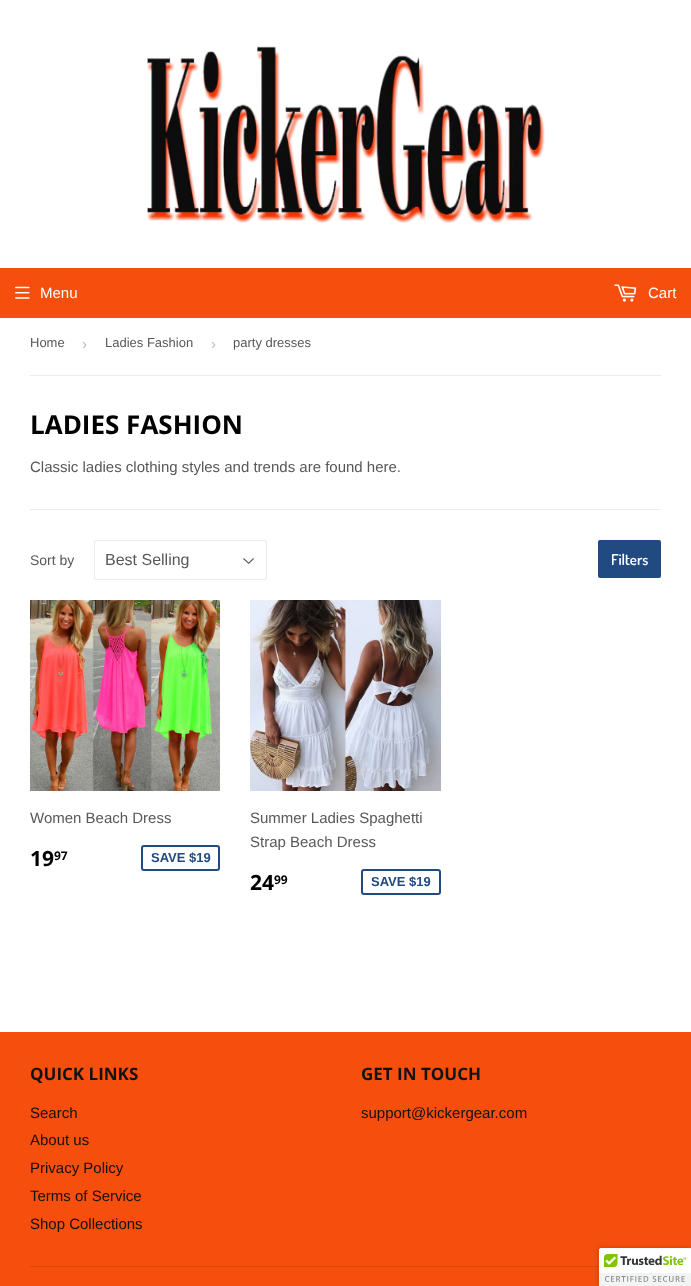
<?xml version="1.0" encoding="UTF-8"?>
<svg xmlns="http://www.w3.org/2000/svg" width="691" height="1286">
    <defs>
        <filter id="blur1" x="-50%" y="-200%" width="200%" height="500%"><feGaussianBlur stdDeviation="2.5"/></filter>
    </defs>
    <rect width="100%" height="100%" fill="#FFFFFF"/>
    <image x="147" y="46" width="398" height="177" href="img_01.png"/>
    <rect x="0" y="268" width="691" height="50" fill="#F64E0C"/>
    <image x="15" y="286" width="15" height="13" href="img_02.png"/>
    <text x="40" y="298" font-family="Liberation Sans" font-size="15" fill="#FFFFFF">Menu</text>
    <image x="614" y="284" width="23" height="18" href="img_03.png"/>
    <text x="648" y="298" font-family="Liberation Sans" font-size="15" fill="#FFFFFF">Cart</text>
    <rect x="30" y="375" width="631" height="1" fill="#ECECEC"/>
    <text x="30" y="347" font-family="Liberation Sans" font-size="13" fill="#585858">Home</text>
    <text x="82" y="349" font-family="Liberation Sans" font-size="15" fill="#BBBBBB">›</text>
    <text x="105" y="347" font-family="Liberation Sans" font-size="13" fill="#585858">Ladies Fashion</text>
    <text x="211" y="349" font-family="Liberation Sans" font-size="15" fill="#BBBBBB">›</text>
    <text x="233" y="347" font-family="Liberation Sans" font-size="13" fill="#585858">party dresses</text>
    <text x="30" y="434" font-family="Open Sans" font-size="26" font-weight="700" fill="#000000">LADIES FASHION</text>
    <text x="30" y="472" font-family="Liberation Sans" font-size="15" fill="#585858">Classic ladies clothing styles and trends are found here.</text>
    <rect x="30" y="509" width="631" height="1" fill="#ECECEC"/>
    <text x="30" y="565" font-family="Liberation Sans" font-size="14" fill="#585858">Sort by</text>
    <image x="243" y="558" width="11" height="6" href="img_04.png"/>
    <rect x="94.5" y="540.5" width="172" height="39" rx="1.5" fill="none" stroke="#ECECEC"/>
    <text x="105" y="565" font-family="Liberation Sans" font-size="16" fill="#585858">Best Selling</text>
    <rect x="598" y="540" width="63" height="38" rx="2" fill="#204A80"/>
    <text x="611" y="565" font-family="Dosis" font-size="15" font-weight="600" fill="#FFFFFF">Filters</text>
    <image x="30" y="600" width="190" height="191" href="img_05.png"/>
    <text x="30" y="823" font-family="Liberation Sans" font-size="15" fill="#585858">Women Beach Dress</text>
    <text x="30" y="866" font-family="Open Sans" font-size="21" font-weight="700" fill="#000000">19</text>
    <text x="54" y="860" font-family="Open Sans" font-size="12" font-weight="700" fill="#000000">97</text>
    <rect x="142" y="846" width="77" height="24" rx="2" fill="none" stroke="#204A80" stroke-width="2"/>
    <text x="151" y="862" font-family="Liberation Sans" font-size="13" font-weight="700" fill="#204A80">SAVE $19</text>
    <image x="250" y="600" width="191" height="191" href="img_06.png"/>
    <text font-family="Liberation Sans" font-size="15" fill="#585858">
        <tspan x="250" y="823">Summer Ladies Spaghetti</tspan>
        <tspan x="250" y="847">Strap Beach Dress</tspan>
    </text>
    <text x="250" y="890" font-family="Open Sans" font-size="21" font-weight="700" fill="#000000">24</text>
    <text x="274" y="884" font-family="Open Sans" font-size="12" font-weight="700" fill="#000000">99</text>
    <rect x="362" y="870" width="78" height="24" rx="2" fill="none" stroke="#204A80" stroke-width="2"/>
    <text x="371" y="886" font-family="Liberation Sans" font-size="13" font-weight="700" fill="#204A80">SAVE $19</text>
    <rect x="0" y="1032" width="691" height="254" fill="#F64E0C"/>
    <text x="30" y="1080" font-family="Open Sans" font-size="17" font-weight="700" fill="#131212">QUICK LINKS</text>
    <text font-family="Liberation Sans" font-size="15" fill="#131212">
        <tspan x="30" y="1118">Search</tspan>
        <tspan x="30" y="1145">About us</tspan>
        <tspan x="30" y="1173">Privacy Policy</tspan>
        <tspan x="30" y="1201">Terms of Service</tspan>
        <tspan x="30" y="1229">Shop Collections</tspan>
    </text>
    <text x="361" y="1080" font-family="Open Sans" font-size="17" font-weight="700" fill="#131212">GET IN TOUCH</text>
    <text x="361" y="1118" font-family="Liberation Sans" font-size="15" fill="#131212">support@kickergear.com</text>
    <rect x="30" y="1266" width="569" height="1" fill="#E04508"/>
    <rect x="599" y="1248" width="92" height="38" rx="2" fill="#000000" fill-opacity="0.2" filter="url(#blur1)"/>
    <path d="M 601 1248 H 691 V 1286 H 599 V 1250 C 599 1249 600 1248 601 1248 Z" fill="#FFFFFF"/>
    <image x="599" y="1248" width="92" height="38" href="img_07.png"/>
</svg>
